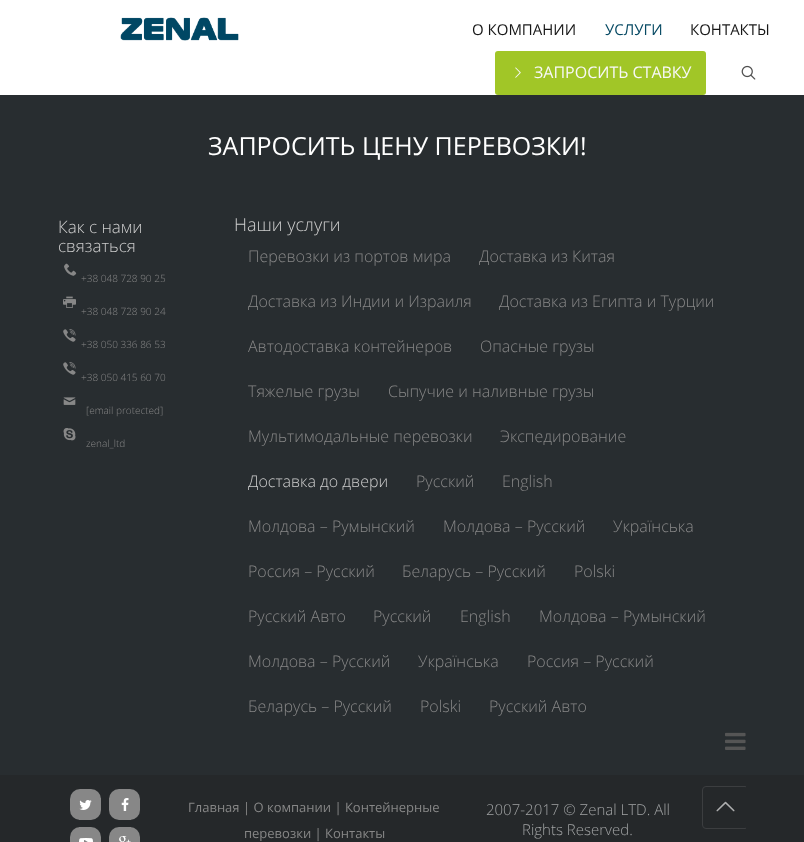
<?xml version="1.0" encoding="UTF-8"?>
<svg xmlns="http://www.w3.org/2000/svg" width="804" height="842">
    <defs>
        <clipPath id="clip1"><rect x="702" y="786" width="44" height="43"/></clipPath>
    </defs>
    <rect width="100%" height="100%" fill="#FFFFFF"/>
    <image x="120" y="17" width="119" height="24" href="img_01.png"/>
    <text x="472" y="35" font-family="Open Sans" font-size="15" fill="#171717">О КОМПАНИИ</text>
    <text x="605" y="35" font-family="Open Sans" font-size="15" fill="#064963">УСЛУГИ</text>
    <text x="690" y="35" font-family="Open Sans" font-size="15" fill="#171717">КОНТАКТЫ</text>
    <rect x="495" y="51" width="211" height="44" rx="3" fill="#A1C627"/>
    <image x="515" y="67" width="6" height="11" href="img_02.png"/>
    <text x="534" y="78" font-family="Open Sans" font-size="16" fill="#F8F8F8">ЗАПРОСИТЬ СТАВКУ</text>
    <image x="741" y="65" width="15" height="15" href="img_03.png"/>
    <rect x="0" y="95" width="804" height="680" fill="#282D30"/>
    <text x="208" y="155" font-family="Open Sans" font-size="25" fill="#FFFFFF">ЗАПРОСИТЬ ЦЕНУ ПЕРЕВОЗКИ!</text>
    <text font-family="Open Sans" font-size="17" font-weight="300" fill="#CCCCCC">
        <tspan x="58" y="233">Как с нами</tspan>
        <tspan x="58" y="252">связаться</tspan>
    </text>
    <image x="64" y="263" width="13" height="13" href="img_04.png"/>
    <text x="81" y="282" font-family="Open Sans" font-size="10" font-weight="300" fill="#878787">+38 048 728 90 25</text>
    <image x="63" y="296" width="13" height="12" href="img_05.png"/>
    <text x="81" y="315" font-family="Open Sans" font-size="10" font-weight="300" fill="#878787">+38 048 728 90 24</text>
    <image x="63" y="329" width="13" height="13" href="img_06.png"/>
    <text x="81" y="348" font-family="Open Sans" font-size="10" font-weight="300" fill="#878787">+38 050 336 86 53</text>
    <image x="63" y="362" width="13" height="13" href="img_06.png"/>
    <text x="81" y="381" font-family="Open Sans" font-size="10" font-weight="300" fill="#878787">+38 050 415 60 70</text>
    <image x="63" y="397" width="13" height="8" href="img_07.png"/>
    <text x="86" y="414" font-family="Open Sans" font-size="10" font-weight="300" fill="#878787">[email protected]</text>
    <image x="63" y="428" width="13" height="13" href="img_08.png"/>
    <text x="86" y="447" font-family="Open Sans" font-size="10" font-weight="300" fill="#878787">zenal_ltd</text>
    <text x="234" y="231" font-family="Open Sans" font-size="18" font-weight="300" fill="#CCCCCC">Наши услуги</text>
    <text x="248" y="262" font-family="Open Sans" font-size="16" font-weight="300" fill="#878787">Перевозки из портов мира</text>
    <text x="479" y="262" font-family="Open Sans" font-size="16" font-weight="300" fill="#878787">Доставка из Китая</text>
    <text x="248" y="307" font-family="Open Sans" font-size="16" font-weight="300" fill="#878787">Доставка из Индии и Израиля</text>
    <text x="499" y="307" font-family="Open Sans" font-size="16" font-weight="300" fill="#878787">Доставка из Египта и Турции</text>
    <text x="248" y="352" font-family="Open Sans" font-size="16" font-weight="300" fill="#878787">Автодоставка контейнеров</text>
    <text x="480" y="352" font-family="Open Sans" font-size="16" font-weight="300" fill="#878787">Опасные грузы</text>
    <text x="248" y="397" font-family="Open Sans" font-size="16" font-weight="300" fill="#878787">Тяжелые грузы</text>
    <text x="388" y="397" font-family="Open Sans" font-size="16" font-weight="300" fill="#878787">Сыпучие и наливные грузы</text>
    <text x="248" y="442" font-family="Open Sans" font-size="16" font-weight="300" fill="#878787">Мультимодальные перевозки</text>
    <text x="500" y="442" font-family="Open Sans" font-size="16" font-weight="300" fill="#878787">Экспедирование</text>
    <text x="248" y="487" font-family="Open Sans" font-size="16" font-weight="300" fill="#CCCCCC">Доставка до двери</text>
    <text x="416" y="487" font-family="Open Sans" font-size="16" font-weight="300" fill="#878787">Русский</text>
    <text x="502" y="487" font-family="Open Sans" font-size="16" font-weight="300" fill="#878787">English</text>
    <text x="248" y="532" font-family="Open Sans" font-size="16" font-weight="300" fill="#878787">Молдова – Румынский</text>
    <text x="443" y="532" font-family="Open Sans" font-size="16" font-weight="300" fill="#878787">Молдова – Русский</text>
    <text x="613" y="532" font-family="Open Sans" font-size="16" font-weight="300" fill="#878787">Українська</text>
    <text x="248" y="577" font-family="Open Sans" font-size="16" font-weight="300" fill="#878787">Россия – Русский</text>
    <text x="402" y="577" font-family="Open Sans" font-size="16" font-weight="300" fill="#878787">Беларусь – Русский</text>
    <text x="574" y="577" font-family="Open Sans" font-size="16" font-weight="300" fill="#878787">Polski</text>
    <text x="248" y="622" font-family="Open Sans" font-size="16" font-weight="300" fill="#878787">Русский Авто</text>
    <text x="373" y="622" font-family="Open Sans" font-size="16" font-weight="300" fill="#878787">Русский</text>
    <text x="460" y="622" font-family="Open Sans" font-size="16" font-weight="300" fill="#878787">English</text>
    <text x="539" y="622" font-family="Open Sans" font-size="16" font-weight="300" fill="#878787">Молдова – Румынский</text>
    <text x="248" y="667" font-family="Open Sans" font-size="16" font-weight="300" fill="#878787">Молдова – Русский</text>
    <text x="418" y="667" font-family="Open Sans" font-size="16" font-weight="300" fill="#878787">Українська</text>
    <text x="527" y="667" font-family="Open Sans" font-size="16" font-weight="300" fill="#878787">Россия – Русский</text>
    <text x="248" y="712" font-family="Open Sans" font-size="16" font-weight="300" fill="#878787">Беларусь – Русский</text>
    <text x="420" y="712" font-family="Open Sans" font-size="16" font-weight="300" fill="#878787">Polski</text>
    <text x="489" y="712" font-family="Open Sans" font-size="16" font-weight="300" fill="#878787">Русский Авто</text>
    <image x="725" y="732" width="21" height="18" href="img_09.png"/>
    <rect x="0" y="775" width="804" height="67" fill="#25282A"/>
    <rect x="70" y="789" width="31" height="31" rx="10" fill="#878787"/>
    <image x="79" y="800" width="13" height="10" href="img_10.png"/>
    <rect x="109" y="789" width="31" height="31" rx="10" fill="#878787"/>
    <image x="121" y="798" width="8" height="13" href="img_11.png"/>
    <rect x="70" y="827" width="31" height="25" rx="10" fill="#878787"/>
    <image x="79" y="838" width="14" height="4" href="img_12.png"/>
    <rect x="109" y="827" width="31" height="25" rx="10" fill="#878787"/>
    <image x="119" y="836" width="12" height="6" href="img_13.png"/>
    <text x="188" y="812" font-family="Open Sans" font-size="13" fill="#878787">Главная | О компании | Контейнерные</text>
    <text x="244" y="838" font-family="Open Sans" font-size="13" fill="#878787">перевозки | Контакты</text>
    <text x="486" y="815" font-family="Open Sans" font-size="15" font-weight="300" fill="#A1A3A4">2007-2017 © Zenal LTD. All</text>
    <text x="522" y="835" font-family="Open Sans" font-size="15" font-weight="300" fill="#A1A3A4">Rights Reserved.</text>
    <g clip-path="url(#clip1)">
        <rect x="702.5" y="786.5" width="46" height="42" rx="3.5" fill="none" stroke="#3C3E40"/>
    </g>
    <image x="716" y="801" width="19" height="11" href="img_14.png"/>
</svg>
